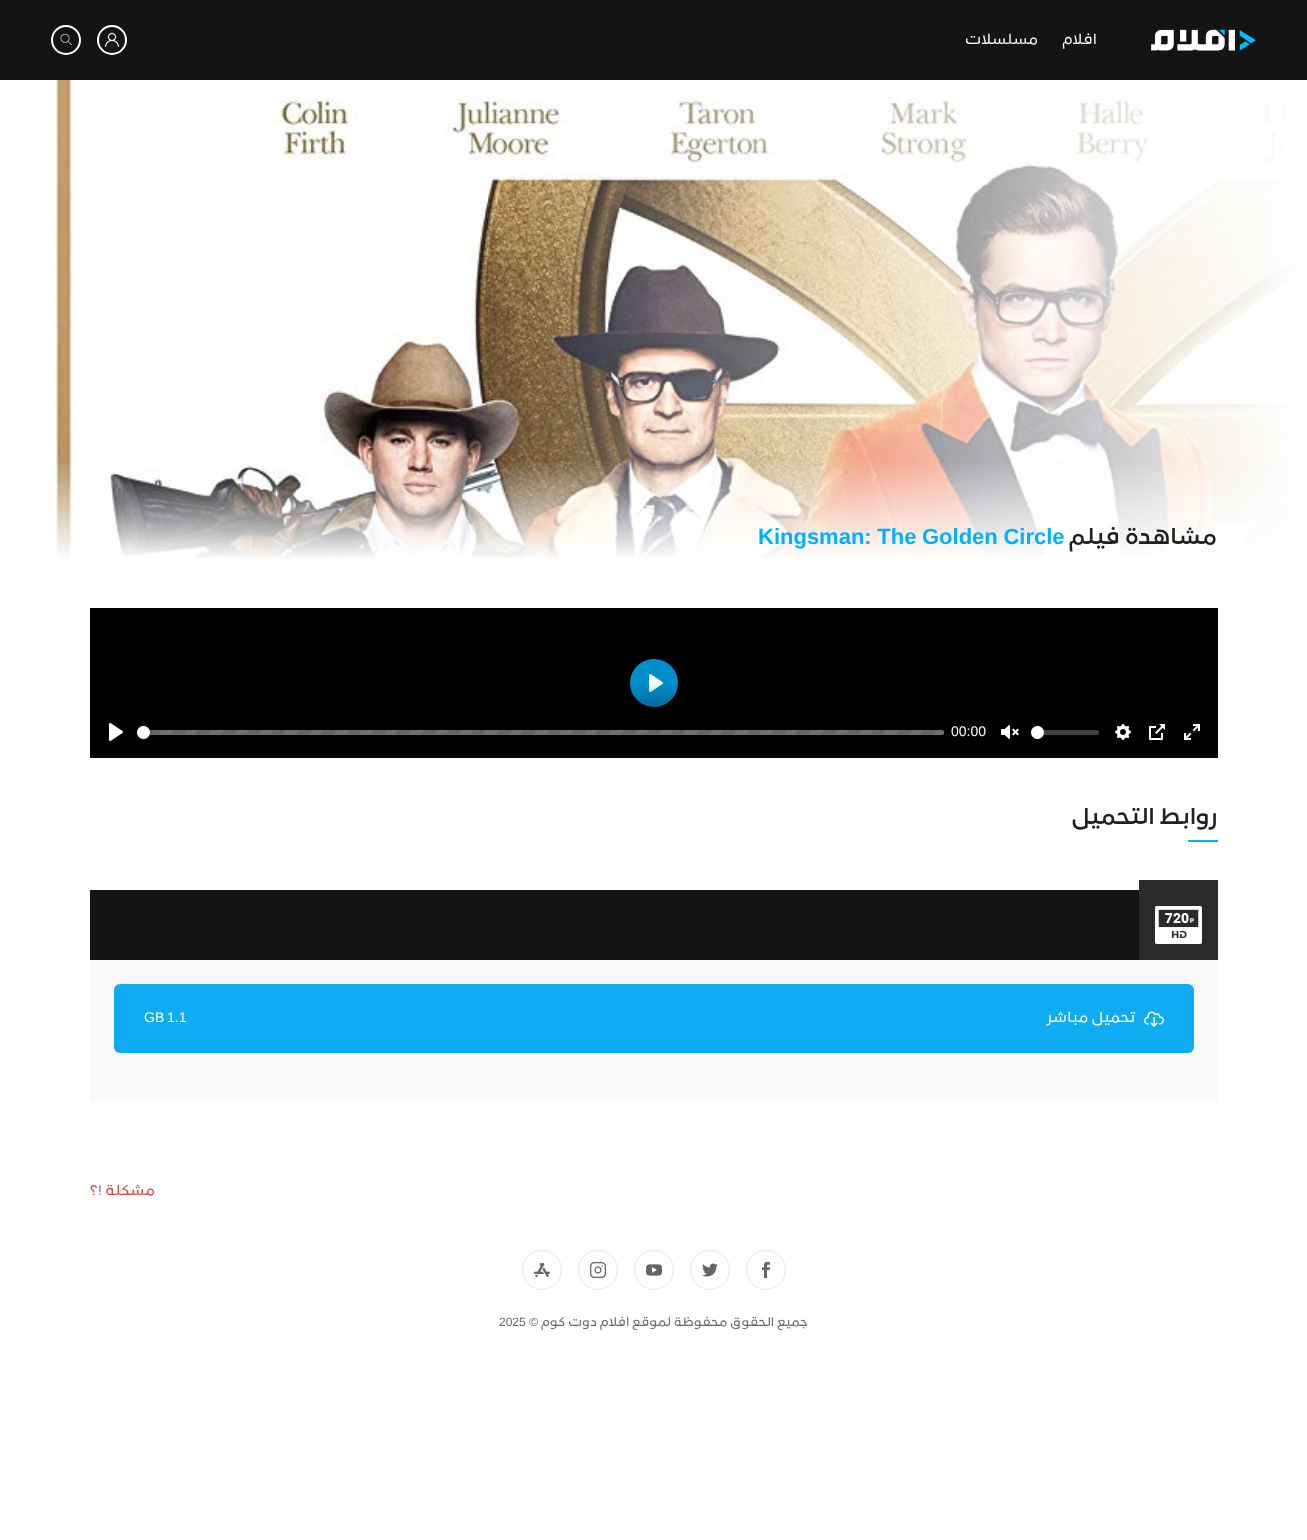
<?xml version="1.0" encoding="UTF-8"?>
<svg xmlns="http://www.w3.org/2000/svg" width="1307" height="1540">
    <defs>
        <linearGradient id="g1" gradientUnits="userSpaceOnUse" x1="654" y1="560" x2="654" y2="460"><stop offset="0" stop-color="#FFFFFF"/><stop offset="1" stop-color="#FFFFFF" stop-opacity="0"/></linearGradient>
        <linearGradient id="g2" gradientUnits="userSpaceOnUse" x1="654" y1="681" x2="654" y2="758"><stop offset="0" stop-color="#000000" stop-opacity="0"/><stop offset="1" stop-color="#000000" stop-opacity="0.7"/></linearGradient>
        <filter id="blur1" x="-50%" y="-200%" width="200%" height="500%"><feGaussianBlur stdDeviation="0.5"/></filter>
    </defs>
    <rect width="100%" height="100%" fill="#FFFFFF"/>
    <rect x="0" y="0" width="1307" height="80" fill="#141414"/>
    <image x="1151" y="29" width="105" height="22" href="img_01.png"/>
    <text x="1097" y="44" font-family="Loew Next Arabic" font-size="14" font-weight="500" direction="rtl" fill="#FFFFFF">افلام</text>
    <text x="1038" y="44" font-family="Loew Next Arabic" font-size="14" font-weight="500" direction="rtl" fill="#FFFFFF">مسلسلات</text>
    <circle cx="112" cy="40" r="14" fill="none" stroke="#FFFFFF" stroke-width="2"/>
    <image x="105" y="32" width="14" height="15" href="img_02.png"/>
    <circle cx="66" cy="40" r="14" fill="none" stroke="#FFFFFF" stroke-width="2"/>
    <image x="60" y="33" width="12" height="13" href="img_03.png"/>
    <image x="51" y="80" width="1256" height="479" href="img_04.png"/>
    <rect x="51" y="462" width="1247" height="97" fill="url(#g1)"/>
    <text x="1217" y="544" font-family="Loew Next Arabic" font-size="22" font-weight="700" direction="rtl" fill="#202020">مشاهدة فيلم</text>
    <text x="758" y="544" word-spacing="-0.5" font-family="Liberation Sans" font-size="22" font-weight="700" fill="#00B1FF">Kingsman: The Golden Circle</text>
    <rect x="90" y="608" width="1128" height="150" fill="#000000"/>
    <circle cx="654" cy="683" r="24" fill="#008FCC"/>
    <image x="649" y="674" width="14" height="18" href="img_05.png"/>
    <image x="136" y="725" width="909" height="15" href="img_06.png"/>
    <rect x="136" y="683" width="909" height="57" fill="url(#g2)"/>
    <image x="1184" y="724" width="16" height="16" href="img_07.png"/>
    <image x="1149" y="724" width="16" height="16" href="img_08.png"/>
    <image x="1115" y="724" width="16" height="16" href="img_09.png"/>
    <rect x="1031" y="730" width="68" height="5" rx="2.5" fill="#FFFFFF" fill-opacity="0.25"/>
    <circle cx="1037.5" cy="732.5" r="7" fill="none" stroke="#23292F" stroke-opacity="0.2"/>
    <rect x="1031" y="727" width="13" height="13" rx="6.5" fill="#000000" fill-opacity="0.15" filter="url(#blur1)"/>
    <circle cx="1037.5" cy="732.5" r="6.5" fill="#FFFFFF"/>
    <image x="1001" y="725" width="18" height="14" href="img_10.png"/>
    <text x="951" y="736" font-family="Liberation Sans" font-size="14" fill="#FFFFFF">00:00</text>
    <rect x="137" y="730" width="807" height="5" rx="2.5" fill="#FFFFFF" fill-opacity="0.25"/>
    <image x="149" y="730" width="788" height="5" href="img_11.png"/>
    <rect x="137" y="730" width="807" height="5" rx="2.5" fill="#FFFFFF" fill-opacity="0.25"/>
    <circle cx="143.5" cy="732.5" r="7" fill="none" stroke="#23292F" stroke-opacity="0.2"/>
    <rect x="137" y="727" width="13" height="13" rx="6.5" fill="#000000" fill-opacity="0.15" filter="url(#blur1)"/>
    <circle cx="143.5" cy="732.5" r="6.5" fill="#FFFFFF"/>
    <image x="109" y="723" width="14" height="18" href="img_12.png"/>
    <text x="1218" y="824" font-family="Loew Next Arabic" font-size="22" font-weight="700" direction="rtl" fill="#202020">روابط</text>
    <text x="1155" y="824" font-family="Loew Next Arabic" font-size="22" font-weight="700" direction="rtl" fill="#202020">التحميل</text>
    <rect x="1188" y="840" width="30" height="2" fill="#00B1FF"/>
    <rect x="90" y="890" width="1049" height="70" fill="#141414"/>
    <rect x="1139" y="880" width="79" height="80" fill="#2A2A2A"/>
    <image x="1155" y="906" width="47" height="38" href="img_13.png"/>
    <rect x="90" y="960" width="1128" height="141" fill="#F8F9FA"/>
    <rect x="114" y="984" width="1080" height="69" rx="6" fill="#0FACF3"/>
    <image x="1144" y="1011" width="20" height="16" href="img_14.png"/>
    <text x="1135" y="1022" font-family="Loew Next Arabic" font-size="14" font-weight="500" direction="rtl" fill="#FFFFFF">تحميل مباشر</text>
    <text x="167" y="1022" font-family="Liberation Sans" font-size="14" fill="#FFFFFF">1.1</text>
    <text x="144" y="1022" font-family="Liberation Sans" font-size="14" fill="#FFFFFF">GB</text>
    <text x="155" y="1195" font-family="Loew Next Arabic" font-size="14" font-weight="500" direction="rtl" fill="#DD3E3D">مشكلة</text>
    <text x="102" y="1195" font-family="Liberation Sans" font-size="14" direction="rtl" fill="#DD3E3D">!</text>
    <text x="98" y="1195" font-family="Loew Next Arabic" font-size="14" font-weight="500" direction="rtl" fill="#DD3E3D">؟</text>
    <circle cx="766" cy="1270" r="19.5" fill="none" stroke="#E6E6E6"/>
    <image x="762" y="1262" width="8" height="16" href="img_15.png"/>
    <circle cx="710" cy="1270" r="19.5" fill="none" stroke="#E6E6E6"/>
    <image x="702" y="1263" width="16" height="14" href="img_16.png"/>
    <circle cx="654" cy="1270" r="19.5" fill="none" stroke="#E6E6E6"/>
    <image x="646" y="1264" width="16" height="12" href="img_17.png"/>
    <circle cx="598" cy="1270" r="19.5" fill="none" stroke="#E6E6E6"/>
    <image x="590" y="1262" width="16" height="16" href="img_18.png"/>
    <circle cx="542" cy="1270" r="19.5" fill="none" stroke="#E6E6E6"/>
    <image x="534" y="1262" width="16" height="16" href="img_19.png"/>
    <text x="808" y="1326" font-family="Loew Next Arabic" font-size="12" font-weight="500" direction="rtl" fill="#666666">جميع الحقوق محفوظة لموقع افلام دوت كوم</text>
    <text x="538" y="1326" font-family="Liberation Sans" font-size="12" direction="rtl" fill="#666666">©</text>
    <text x="499" y="1326" font-family="Liberation Sans" font-size="12" fill="#666666">2025</text>
</svg>
